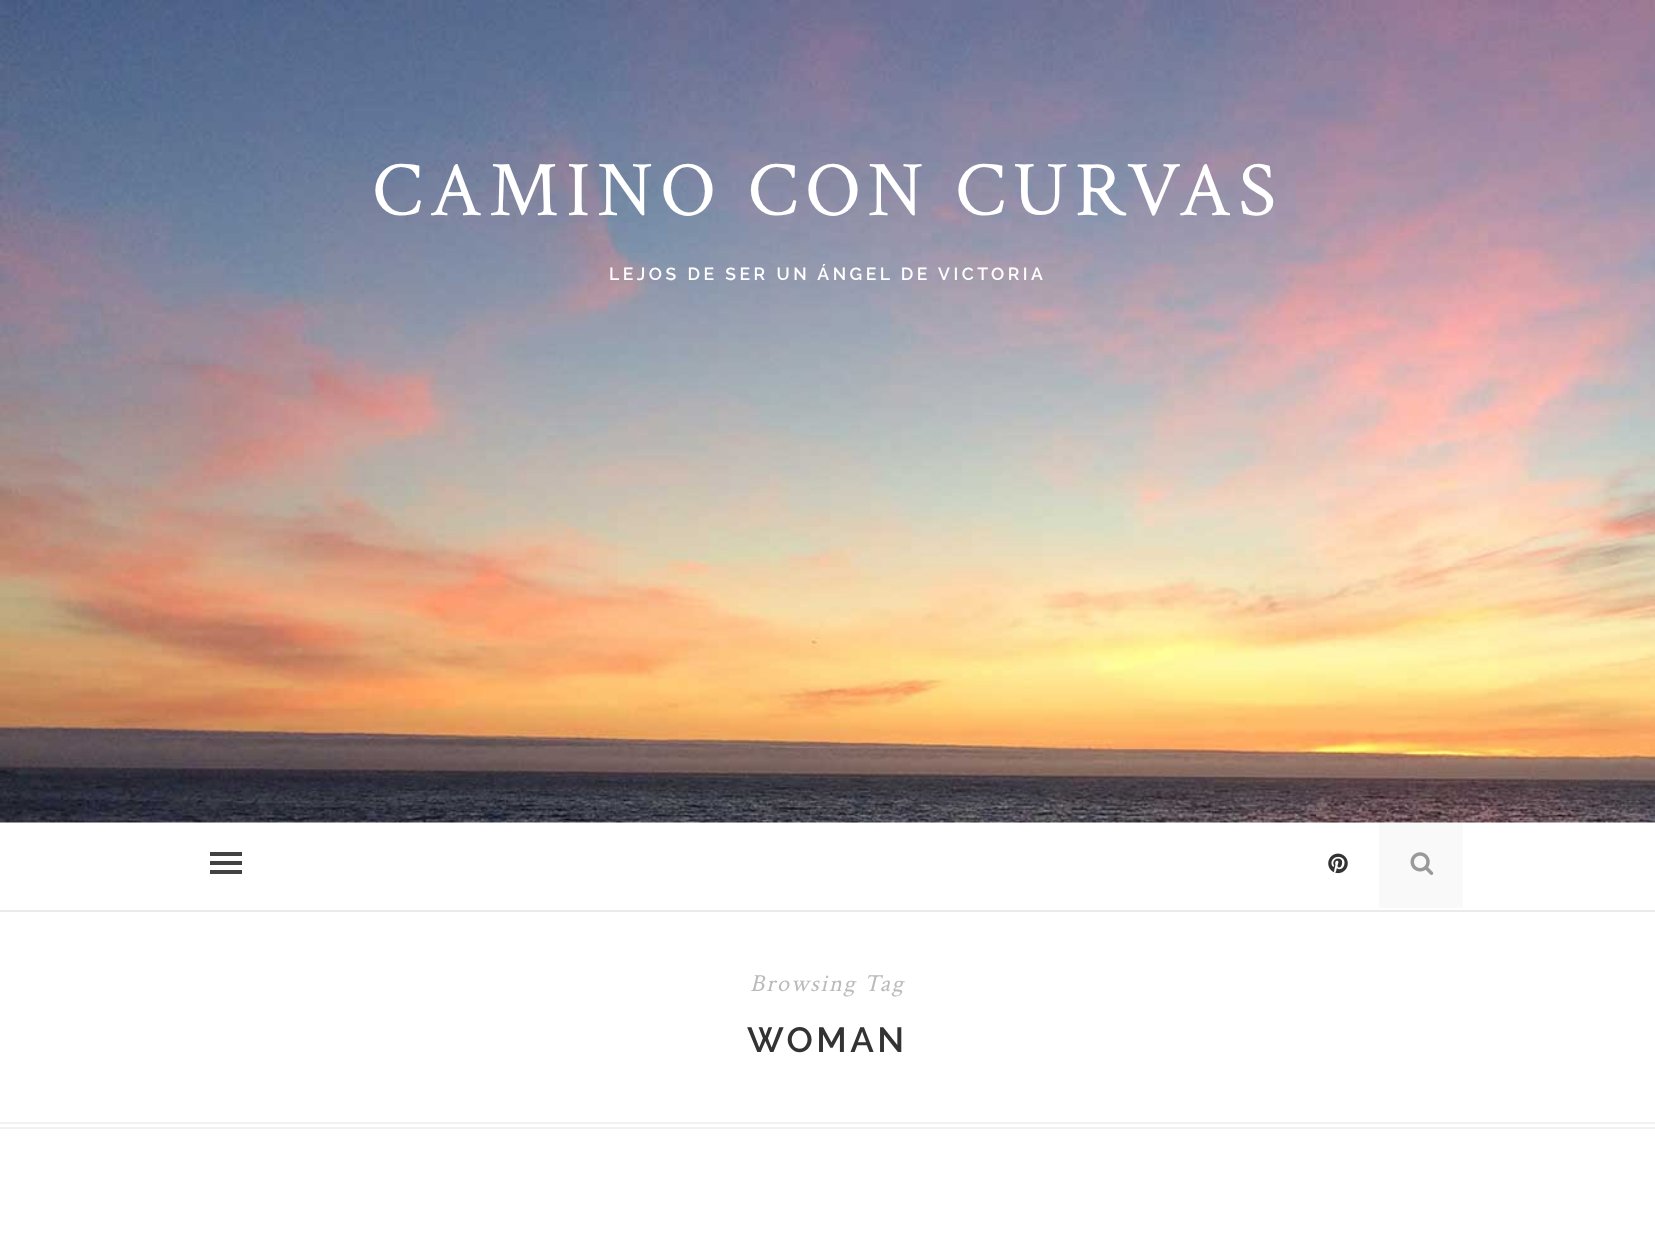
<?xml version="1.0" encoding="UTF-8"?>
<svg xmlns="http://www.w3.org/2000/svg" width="1655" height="1236">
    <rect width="100%" height="100%" fill="#FFFFFF"/>
    <image x="0" y="0" width="1655" height="823" href="img_01.png"/>
    <text x="372" y="215" font-family="Crimson Text" font-size="78.75" letter-spacing="7" fill="#FFFFFF">CAMINO CON CURVAS</text>
    <text x="609" y="280" font-family="Raleway" font-size="17.5" font-weight="600" letter-spacing="3.5" fill="#FFFFFF">LEJOS DE SER UN ÁNGEL DE VICTORIA</text>
    <rect x="0" y="910" width="1655" height="2" fill="#EAEAEA"/>
    <rect x="210" y="852" width="32" height="4" fill="#424242"/>
    <rect x="210" y="861" width="32" height="4" fill="#424242"/>
    <rect x="210" y="870" width="32" height="4" fill="#424242"/>
    <image x="1328" y="853" width="20" height="21" href="img_02.png"/>
    <rect x="1379" y="823" width="84" height="85" fill="#F9F9F9"/>
    <image x="1410" y="852" width="24" height="23" href="img_03.png"/>
    <rect x="0" y="1122" width="1655" height="2" fill="#F1F1F1"/>
    <rect x="0" y="1127" width="1655" height="2" fill="#F1F1F1"/>
    <text x="750" y="991" font-family="Crimson Text" font-size="24.5" font-style="italic" letter-spacing="1.75" fill="#BBBBBB">Browsing Tag</text>
    <text x="747" y="1052" font-family="Raleway" font-size="35" font-weight="600" letter-spacing="3.5" fill="#333333">WOMAN</text>
</svg>
